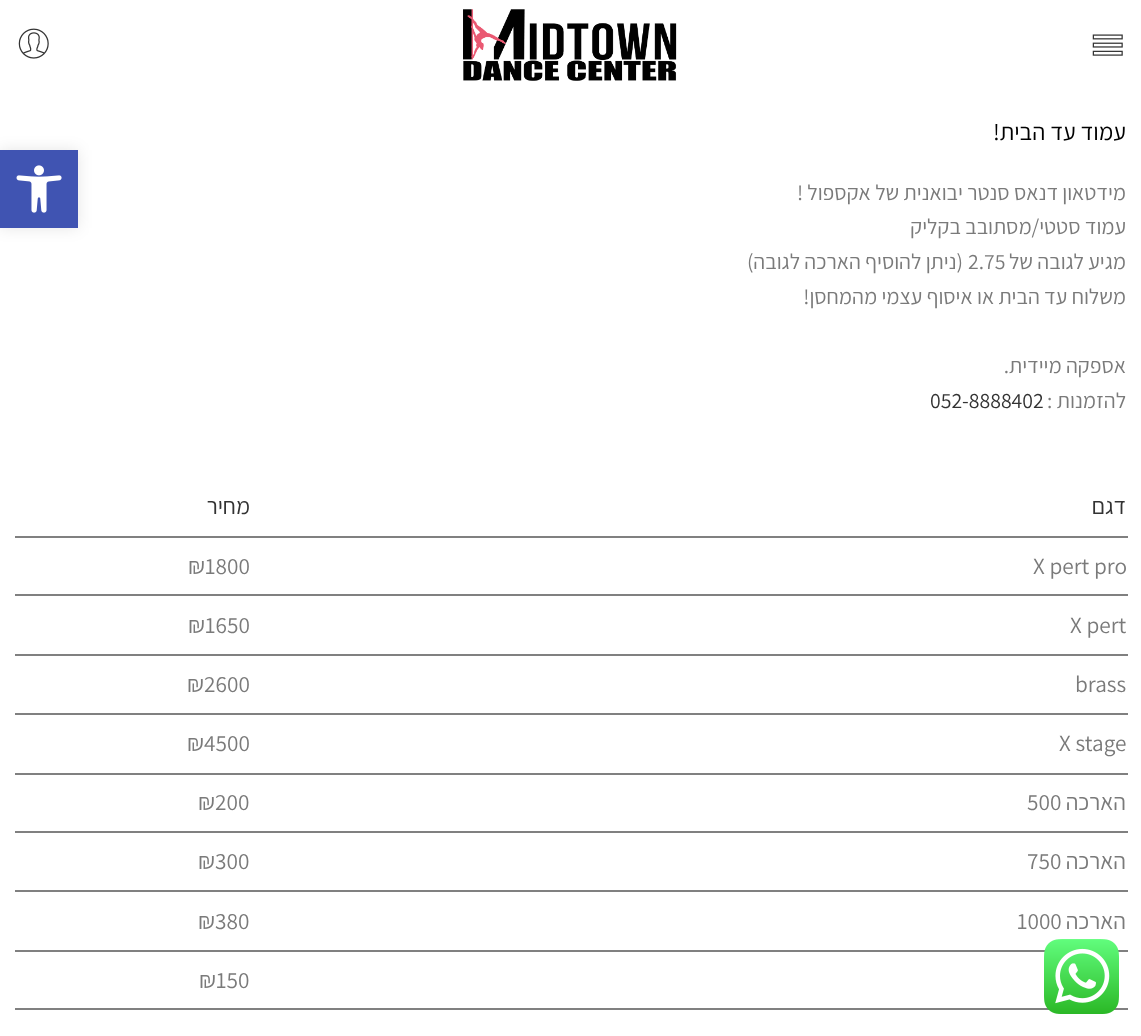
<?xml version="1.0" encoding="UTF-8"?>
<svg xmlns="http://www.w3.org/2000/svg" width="1141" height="1036">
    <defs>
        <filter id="blur1" x="-50%" y="-200%" width="200%" height="500%"><feGaussianBlur stdDeviation="7.5"/></filter>
    </defs>
    <rect width="100%" height="100%" fill="#FFFFFF"/>
    <image x="1092" y="34" width="31" height="22" href="img_01.png"/>
    <image x="463" y="9" width="214" height="72" href="img_02.png"/>
    <image x="18" y="28" width="31" height="31" href="img_03.png"/>
    <text x="1126" y="140" font-family="Assistant" font-size="24" direction="rtl" fill="#000000">עמוד עד הבית!</text>
    <text font-family="Assistant" font-size="21.75" direction="rtl" fill="#7A7A7A">
        <tspan x="1126" y="200">מידטאון דנאס סנטר יבואנית של אקספול !</tspan>
        <tspan x="1126" y="234">עמוד סטטי/מסתובב בקליק</tspan>
        <tspan x="1126" y="269">מגיע לגובה של</tspan>
    </text>
    <text x="968" y="269" font-family="Assistant" font-size="21.75" fill="#7A7A7A">2.75</text>
    <text x="963" y="269" font-family="Assistant" font-size="21.75" direction="rtl" fill="#7A7A7A">(ניתן להוסיף הארכה לגובה)</text>
    <text x="1126" y="304" font-family="Assistant" font-size="21.75" direction="rtl" fill="#7A7A7A">משלוח עד הבית או איסוף עצמי מהמחסן!</text>
    <text font-family="Assistant" font-size="21.75" direction="rtl" fill="#7A7A7A">
        <tspan x="1126" y="373">אספקה מיידית.</tspan>
        <tspan x="1126" y="408">להזמנות :</tspan>
    </text>
    <text x="930" y="408" font-family="Assistant" font-size="21.75" fill="#333333">052-8888402</text>
    <rect x="15" y="536" width="1113" height="2" fill="#808080"/>
    <text x="1126" y="514" font-family="Assistant" font-size="23.25" direction="rtl" fill="#333333">דגם</text>
    <text x="250" y="514" font-family="Assistant" font-size="23.25" direction="rtl" fill="#333333">מחיר</text>
    <rect x="15" y="594" width="1113" height="2" fill="#808080"/>
    <text x="1033" y="574" font-family="Assistant" font-size="23.25" fill="#7A7A7A">X pert pro</text>
    <text x="188" y="574" font-family="Assistant" font-size="23.25" fill="#7A7A7A">₪1800</text>
    <rect x="15" y="654" width="1113" height="2" fill="#808080"/>
    <text x="1070" y="633" font-family="Assistant" font-size="23.25" fill="#7A7A7A">X pert</text>
    <text x="188" y="633" font-family="Assistant" font-size="23.25" fill="#7A7A7A">₪1650</text>
    <rect x="15" y="713" width="1113" height="2" fill="#808080"/>
    <text x="1075" y="692" font-family="Assistant" font-size="23.25" fill="#7A7A7A">brass</text>
    <text x="187" y="692" font-family="Assistant" font-size="23.25" fill="#7A7A7A">₪2600</text>
    <rect x="15" y="773" width="1113" height="2" fill="#808080"/>
    <text x="1059" y="751" font-family="Assistant" font-size="23.25" fill="#7A7A7A">X stage</text>
    <text x="187" y="751" font-family="Assistant" font-size="23.25" fill="#7A7A7A">₪4500</text>
    <rect x="15" y="831" width="1113" height="2" fill="#808080"/>
    <text x="1126" y="810" font-family="Assistant" font-size="23.25" direction="rtl" fill="#7A7A7A">הארכה</text>
    <text x="1027" y="810" font-family="Assistant" font-size="23.25" fill="#7A7A7A">500</text>
    <text x="198" y="810" font-family="Assistant" font-size="23.25" fill="#7A7A7A">₪200</text>
    <rect x="15" y="890" width="1113" height="2" fill="#808080"/>
    <text x="1126" y="869" font-family="Assistant" font-size="23.25" direction="rtl" fill="#7A7A7A">הארכה</text>
    <text x="1027" y="869" font-family="Assistant" font-size="23.25" fill="#7A7A7A">750</text>
    <text x="198" y="869" font-family="Assistant" font-size="23.25" fill="#7A7A7A">₪300</text>
    <rect x="15" y="950" width="1113" height="2" fill="#808080"/>
    <text x="1126" y="929" font-family="Assistant" font-size="23.25" direction="rtl" fill="#7A7A7A">הארכה</text>
    <text x="1017" y="929" font-family="Assistant" font-size="23.25" fill="#7A7A7A">1000</text>
    <text x="198" y="929" font-family="Assistant" font-size="23.25" fill="#7A7A7A">₪380</text>
    <rect x="15" y="1008" width="1113" height="2" fill="#808080"/>
    <text x="199" y="988" font-family="Assistant" font-size="23.25" fill="#7A7A7A">₪150</text>
    <rect x="0" y="150" width="78" height="78" fill="#000000" fill-opacity="0.1" filter="url(#blur1)"/>
    <rect x="0" y="150" width="78" height="78" fill="#4054B2"/>
    <image x="16" y="165" width="46" height="48" href="img_04.png"/>
    <image x="1044" y="939" width="75" height="75" href="img_05.png"/>
</svg>
